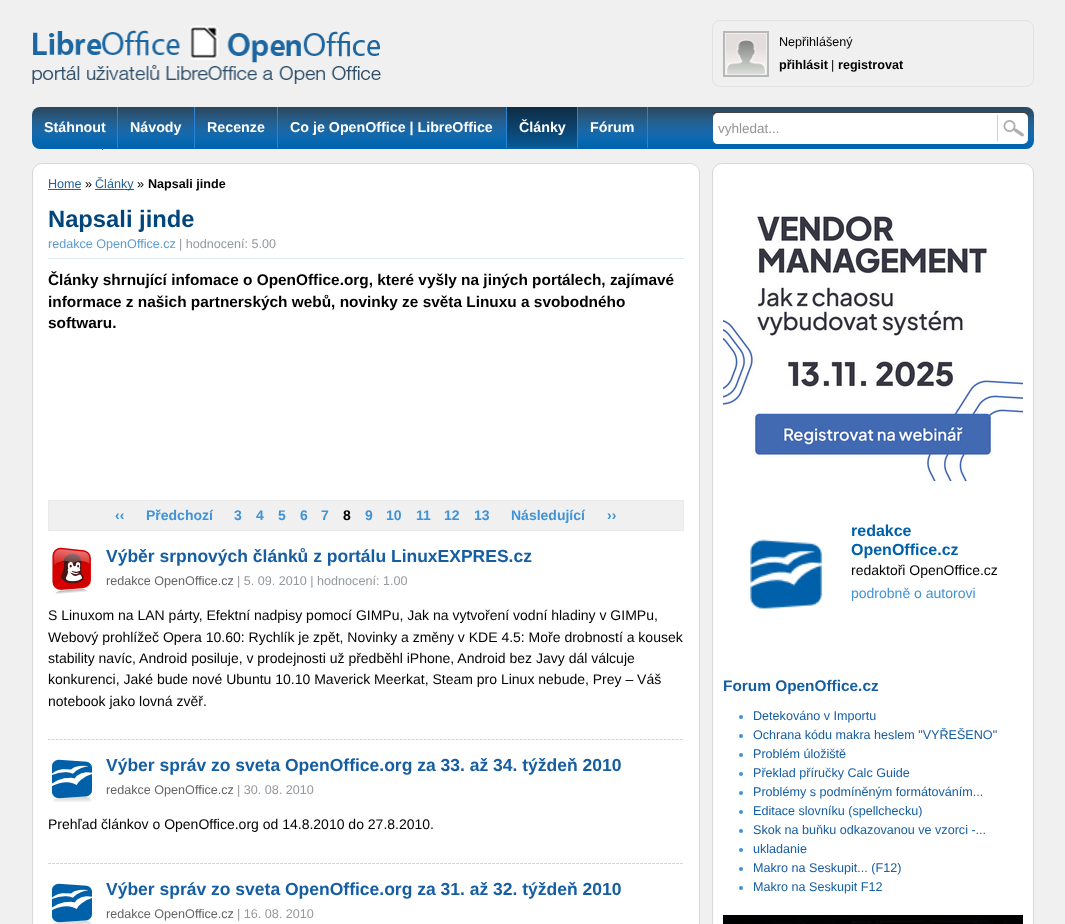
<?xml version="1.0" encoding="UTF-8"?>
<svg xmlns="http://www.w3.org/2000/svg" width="1065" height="924">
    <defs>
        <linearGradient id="g1" gradientUnits="userSpaceOnUse" x1="533" y1="107" x2="533" y2="149"><stop offset="0" stop-color="#2A475F"/><stop offset="0.1" stop-color="#2A4D6A"/><stop offset="0.3" stop-color="#265C88"/><stop offset="0.53" stop-color="#1B67A4"/><stop offset="0.68" stop-color="#1269AE"/><stop offset="0.83" stop-color="#0567B0"/><stop offset="1" stop-color="#0061AC"/></linearGradient>
        <linearGradient id="g2" gradientUnits="userSpaceOnUse" x1="542" y1="107" x2="542" y2="147"><stop offset="0" stop-color="#102C43"/><stop offset="1" stop-color="#075894"/></linearGradient>
    </defs>
    <rect width="100%" height="100%" fill="#F0F0F0"/>
    <image x="32" y="25" width="349" height="59" href="img_01.png"/>
    <rect x="712.5" y="20.5" width="321" height="66" rx="7.5" fill="none" stroke="#E2E2E2"/>
    <rect x="724" y="32" width="44" height="44" fill="none" stroke="#B8B8B8" stroke-width="2"/>
    <image x="726" y="34" width="40" height="40" href="img_02.png"/>
    <text x="779" y="46" font-family="Liberation Sans" font-size="12.6" fill="#000000">Nepřihlášený</text>
    <text x="779" y="69" font-family="Liberation Sans" font-size="12.6" font-weight="700" fill="#000000">přihlásit</text>
    <text x="831" y="69" font-family="Liberation Sans" font-size="12.6" fill="#000000">|</text>
    <text x="838" y="69" font-family="Liberation Sans" font-size="12.6" font-weight="700" fill="#000000">registrovat</text>
    <rect x="32" y="107" width="1002" height="42" rx="8" fill="url(#g1)"/>
    <rect x="117" y="107" width="1" height="41" fill="#2983D6"/>
    <text x="44" y="132" font-family="Liberation Sans" font-size="14.25" font-weight="700" fill="#FFFFFF">Stáhnout</text>
    <rect x="194" y="107" width="1" height="41" fill="#2983D6"/>
    <text x="130" y="132" font-family="Liberation Sans" font-size="14.25" font-weight="700" fill="#FFFFFF">Návody</text>
    <rect x="277" y="107" width="1" height="41" fill="#2983D6"/>
    <text x="207" y="132" font-family="Liberation Sans" font-size="14.25" font-weight="700" fill="#FFFFFF">Recenze</text>
    <rect x="506" y="107" width="1" height="41" fill="#2983D6"/>
    <text x="290" y="132" font-family="Liberation Sans" font-size="14.25" font-weight="700" fill="#FFFFFF">Co je OpenOffice | LibreOffice</text>
    <rect x="577" y="107" width="1" height="41" fill="#2983D6"/>
    <rect x="507" y="107" width="70" height="40" fill="url(#g2)"/>
    <text x="519" y="132" font-family="Liberation Sans" font-size="14.25" font-weight="700" fill="#FFFFFF">Články</text>
    <rect x="647" y="107" width="1" height="41" fill="#2983D6"/>
    <text x="590" y="132" font-family="Liberation Sans" font-size="14.25" font-weight="700" fill="#FFFFFF">Fórum</text>
    <rect x="102" y="148" width="1" height="2" fill="#2983D6"/>
    <rect x="712" y="112" width="317" height="2" rx="1" fill="#434343"/>
    <path d="M 718 113 H 988 V 144 H 718 C 715 144 713 142 713 139 V 118 C 713 115 715 113 718 113 Z" fill="#FFFFFF"/>
    <text x="718" y="133" font-family="Liberation Sans" font-size="13.5" fill="#949494">vyhledat...</text>
    <image x="988" y="113" width="40" height="31" href="img_03.png"/>
    <rect x="32.5" y="163.5" width="667" height="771" rx="9.5" fill="#FFFFFF" stroke="#D8D8D8"/>
    <text x="48" y="188" font-family="Liberation Sans" font-size="12.6" fill="#226298">Home</text>
    <rect x="48" y="189" width="33" height="1" fill="#226298"/>
    <text x="85" y="188" font-family="Liberation Sans" font-size="12.6" fill="#000000">»</text>
    <rect x="95" y="189" width="39" height="1" fill="#226298"/>
    <text x="95" y="188" font-family="Liberation Sans" font-size="12.6" fill="#226298">Články</text>
    <text x="137" y="188" font-family="Liberation Sans" font-size="12.6" fill="#000000">»</text>
    <text x="148" y="188" font-family="Liberation Sans" font-size="12.6" font-weight="700" fill="#000000">Napsali jinde</text>
    <text x="48" y="227" font-family="Liberation Sans" font-size="23.75" font-weight="700" fill="#00457C">Napsali jinde</text>
    <text x="48" y="248" font-family="Liberation Sans" font-size="12.6" fill="#5D9CCF">redakce OpenOffice.cz</text>
    <text x="179" y="248" font-family="Liberation Sans" font-size="12.6" fill="#94999D">| hodnocení: 5.00</text>
    <rect x="48" y="258" width="636" height="1" fill="#DFEBF4"/>
    <text font-family="Liberation Sans" font-size="15.4" font-weight="700" fill="#000000">
        <tspan x="48" y="285">Články shrnující infomace o OpenOffice.org, které vyšly na jiných portálech, zajímavé</tspan>
        <tspan x="48" y="307">informace z našich partnerských webů, novinky ze světa Linuxu a svobodného</tspan>
        <tspan x="48" y="328">softwaru.</tspan>
    </text>
    <rect x="48.5" y="500.5" width="635" height="30" fill="#F0F0F0" stroke="#EAEAEA"/>
    <text x="115" y="520" font-family="Liberation Sans" font-size="14" font-weight="700" fill="#3F93D7">‹‹</text>
    <text x="146" y="520" font-family="Liberation Sans" font-size="14" font-weight="700" fill="#3F93D7">Předchozí</text>
    <text x="234" y="520" font-family="Liberation Sans" font-size="14" font-weight="700" fill="#3F93D7">3</text>
    <text x="256" y="520" font-family="Liberation Sans" font-size="14" font-weight="700" fill="#3F93D7">4</text>
    <text x="278" y="520" font-family="Liberation Sans" font-size="14" font-weight="700" fill="#3F93D7">5</text>
    <text x="300" y="520" font-family="Liberation Sans" font-size="14" font-weight="700" fill="#3F93D7">6</text>
    <text x="321" y="520" font-family="Liberation Sans" font-size="14" font-weight="700" fill="#3F93D7">7</text>
    <text x="343" y="520" font-family="Liberation Sans" font-size="14" font-weight="700" fill="#000000">8</text>
    <text x="365" y="520" font-family="Liberation Sans" font-size="14" font-weight="700" fill="#3F93D7">9</text>
    <text x="386" y="520" font-family="Liberation Sans" font-size="14" font-weight="700" fill="#3F93D7">10</text>
    <text x="416" y="520" font-family="Liberation Sans" font-size="14" font-weight="700" fill="#3F93D7">11</text>
    <text x="444" y="520" font-family="Liberation Sans" font-size="14" font-weight="700" fill="#3F93D7">12</text>
    <text x="474" y="520" font-family="Liberation Sans" font-size="14" font-weight="700" fill="#3F93D7">13</text>
    <text x="511" y="520" font-family="Liberation Sans" font-size="14" font-weight="700" fill="#3F93D7">Následující</text>
    <text x="607" y="520" font-family="Liberation Sans" font-size="14" font-weight="700" fill="#3F93D7">››</text>
    <image x="48" y="739" width="635" height="1" href="img_04.png"/>
    <image x="52" y="547" width="39" height="47" href="img_05.png"/>
    <text x="106" y="562" font-family="Liberation Sans" font-size="17.5" font-weight="700" fill="#165EA2">Výběr srpnových článků z portálu LinuxEXPRES.cz</text>
    <text x="106" y="585" font-family="Liberation Sans" font-size="12.6" fill="#626465">redakce OpenOffice.cz</text>
    <text x="237" y="585" font-family="Liberation Sans" font-size="12.6" fill="#94999D">| 5. 09. 2010 | hodnocení: 1.00</text>
    <text font-family="Liberation Sans" font-size="14" fill="#000000">
        <tspan x="48" y="620">S Linuxom na LAN párty, Efektní nadpisy pomocí GIMPu, Jak na vytvoření vodní hladiny v GIMPu,</tspan>
        <tspan x="48" y="642">Webový prohlížeč Opera 10.60: Rychlík je zpět, Novinky a změny v KDE 4.5: Moře drobností a kousek</tspan>
        <tspan x="48" y="663">stability navíc, Android posiluje, v prodejnosti už předběhl iPhone, Android bez Javy dál válcuje</tspan>
        <tspan x="48" y="684">konkurenci, Jaké bude nové Ubuntu 10.10 Maverick Meerkat, Steam pro Linux nebude, Prey – Váš</tspan>
        <tspan x="48" y="706">notebook jako lovná zvěř.</tspan>
    </text>
    <image x="48" y="863" width="635" height="1" href="img_04.png"/>
    <image x="52" y="759" width="40" height="43" href="img_06.png"/>
    <text x="106" y="771" font-family="Liberation Sans" font-size="17.5" font-weight="700" fill="#165EA2">Výber správ zo sveta OpenOffice.org za 33. až 34. týždeň 2010</text>
    <text x="106" y="794" font-family="Liberation Sans" font-size="12.6" fill="#626465">redakce OpenOffice.cz</text>
    <text x="237" y="794" font-family="Liberation Sans" font-size="12.6" fill="#94999D">| 30. 08. 2010</text>
    <text x="48" y="829" font-family="Liberation Sans" font-size="14" fill="#000000">Prehľad článkov o OpenOffice.org od 14.8.2010 do 27.8.2010.</text>
    <image x="52" y="883" width="40" height="41" href="img_07.png"/>
    <text x="106" y="895" font-family="Liberation Sans" font-size="17.5" font-weight="700" fill="#165EA2">Výber správ zo sveta OpenOffice.org za 31. až 32. týždeň 2010</text>
    <text x="106" y="918" font-family="Liberation Sans" font-size="12.6" fill="#626465">redakce OpenOffice.cz</text>
    <text x="237" y="918" font-family="Liberation Sans" font-size="12.6" fill="#94999D">| 16. 08. 2010</text>
    <rect x="712.5" y="163.5" width="321" height="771" rx="9.5" fill="#FFFFFF" stroke="#D8D8D8"/>
    <image x="723" y="214" width="300" height="267" href="img_08.png"/>
    <image x="750" y="539" width="73" height="70" href="img_09.png"/>
    <text font-family="Liberation Sans" font-size="16" font-weight="700" fill="#0060A9">
        <tspan x="851" y="536">redakce</tspan>
        <tspan x="851" y="555">OpenOffice.cz</tspan>
    </text>
    <text x="851" y="575" font-family="Liberation Sans" font-size="14" fill="#000000">redaktoři OpenOffice.cz</text>
    <text x="851" y="598" font-family="Liberation Sans" font-size="14" fill="#3F93D7">podrobně o autorovi</text>
    <text x="723" y="691" font-family="Liberation Sans" font-size="15.4" font-weight="700" fill="#165EA2">Forum OpenOffice.cz</text>
    <circle cx="741" cy="717" r="2" fill="#3F93D7"/>
    <text x="753" y="720" font-family="Liberation Sans" font-size="12.6" fill="#165EA2">Detekováno v Importu</text>
    <circle cx="741" cy="736" r="2" fill="#3F93D7"/>
    <text x="753" y="739" font-family="Liberation Sans" font-size="12.6" fill="#165EA2">Ochrana kódu makra heslem "VYŘEŠENO"</text>
    <circle cx="741" cy="755" r="2" fill="#3F93D7"/>
    <text x="753" y="758" font-family="Liberation Sans" font-size="12.6" fill="#165EA2">Problém úložiště</text>
    <circle cx="741" cy="774" r="2" fill="#3F93D7"/>
    <text x="753" y="777" font-family="Liberation Sans" font-size="12.6" fill="#165EA2">Překlad příručky Calc Guide</text>
    <circle cx="741" cy="793" r="2" fill="#3F93D7"/>
    <text x="753" y="796" font-family="Liberation Sans" font-size="12.6" fill="#165EA2">Problémy s podmíněným formátováním...</text>
    <circle cx="741" cy="812" r="2" fill="#3F93D7"/>
    <text x="753" y="815" font-family="Liberation Sans" font-size="12.6" fill="#165EA2">Editace slovníku (spellchecku)</text>
    <circle cx="741" cy="831" r="2" fill="#3F93D7"/>
    <text x="753" y="834" font-family="Liberation Sans" font-size="12.6" fill="#165EA2">Skok na buňku odkazovanou ve vzorci -...</text>
    <circle cx="741" cy="850" r="2" fill="#3F93D7"/>
    <text x="753" y="853" font-family="Liberation Sans" font-size="12.6" fill="#165EA2">ukladanie</text>
    <circle cx="741" cy="869" r="2" fill="#3F93D7"/>
    <text x="753" y="872" font-family="Liberation Sans" font-size="12.6" fill="#165EA2">Makro na Seskupit... (F12)</text>
    <circle cx="741" cy="888" r="2" fill="#3F93D7"/>
    <text x="753" y="891" font-family="Liberation Sans" font-size="12.6" fill="#165EA2">Makro na Seskupit F12</text>
    <image x="723" y="915" width="300" height="9" href="img_10.png"/>
</svg>
